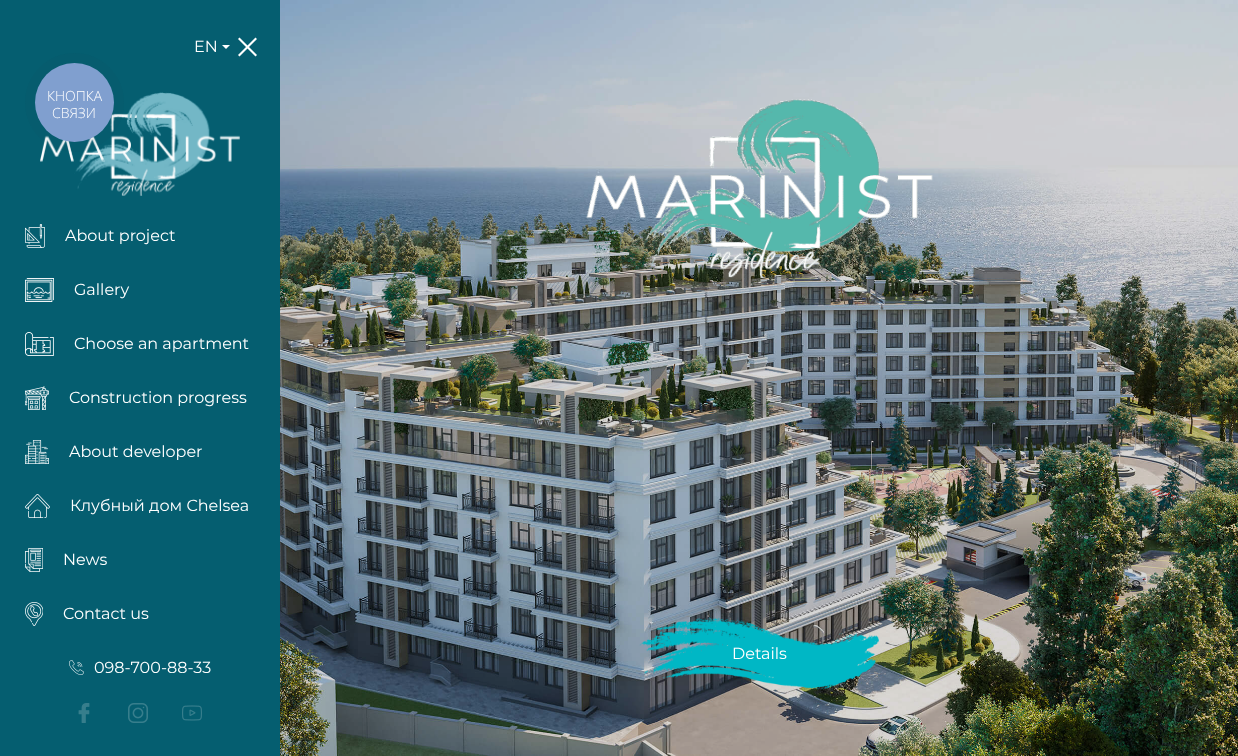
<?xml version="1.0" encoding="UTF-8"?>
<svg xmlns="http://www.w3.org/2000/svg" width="1238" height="756">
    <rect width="100%" height="100%" fill="#FFFFFF"/>
    <rect x="0" y="0" width="280" height="756" fill="#055E70"/>
    <text x="194" y="52" font-family="Montserrat" font-size="16" fill="#FFFFFF">EN</text>
    <path d="M 222 45 H 230 L 226 49 Z M 257 39 L 239.5 56.5 L 238 55 L 255.5 37.5 Z" fill="#FFFFFF"/>
    <path d="M 255.5 56.5 L 238 39 L 239.5 37.5 L 257 55 Z" fill="#FFFFFF"/>
    <image x="40" y="92" width="200" height="104" href="img_01.png"/>
    <image x="25" y="224" width="20" height="24" href="img_02.png"/>
    <text x="65" y="241" font-family="Montserrat" font-size="16" fill="#FFFFFF">About project</text>
    <image x="25" y="278" width="29" height="24" href="img_03.png"/>
    <text x="74" y="295" font-family="Montserrat" font-size="16" fill="#FFFFFF">Gallery</text>
    <image x="25" y="332" width="29" height="24" href="img_04.png"/>
    <text x="74" y="349" font-family="Montserrat" font-size="16" fill="#FFFFFF">Choose an apartment</text>
    <image x="25" y="386" width="24" height="24" href="img_05.png"/>
    <text x="69" y="403" font-family="Montserrat" font-size="16" fill="#FFFFFF">Construction progress</text>
    <image x="25" y="440" width="24" height="24" href="img_06.png"/>
    <text x="69" y="457" font-family="Montserrat" font-size="16" fill="#FFFFFF">About developer</text>
    <image x="25" y="494" width="25" height="24" href="img_07.png"/>
    <text x="70" y="511" font-family="Montserrat" font-size="16" fill="#FFFFFF">Клубный дом Chelsea</text>
    <image x="25" y="548" width="18" height="24" href="img_08.png"/>
    <text x="63" y="565" font-family="Montserrat" font-size="16" fill="#FFFFFF">News</text>
    <image x="25" y="602" width="18" height="24" href="img_09.png"/>
    <text x="63" y="619" font-family="Montserrat" font-size="16" fill="#FFFFFF">Contact us</text>
    <image x="69" y="660" width="15" height="15" href="img_10.png"/>
    <text x="94" y="673" font-family="Montserrat" font-size="16" fill="#FFFFFF">098-700-88-33</text>
    <image x="78" y="703" width="12" height="20" href="img_11.png"/>
    <image x="128" y="703" width="20" height="20" href="img_12.png"/>
    <image x="182" y="705" width="20" height="16" href="img_13.png"/>
    <circle cx="74.5" cy="102.5" r="49.5" fill="#2A405D" fill-opacity="0.06"/>
    <circle cx="74.5" cy="102.5" r="39.5" fill="#809FCF"/>
    <text x="47" y="101" font-family="Open Sans" font-size="14" font-weight="300" fill="#FFFFFF">КНОПКА</text>
    <text x="52" y="118" font-family="Open Sans" font-size="14" font-weight="300" fill="#FFFFFF">СВЯЗИ</text>
    <image x="280" y="0" width="958" height="756" href="img_14.png"/>
    <image x="586" y="99" width="347" height="179" href="img_15.png"/>
    <image x="639" y="617" width="240" height="73" href="img_16.png"/>
    <text x="732" y="659" font-family="Montserrat" font-size="16" fill="#FFFFFF">Details</text>
</svg>
